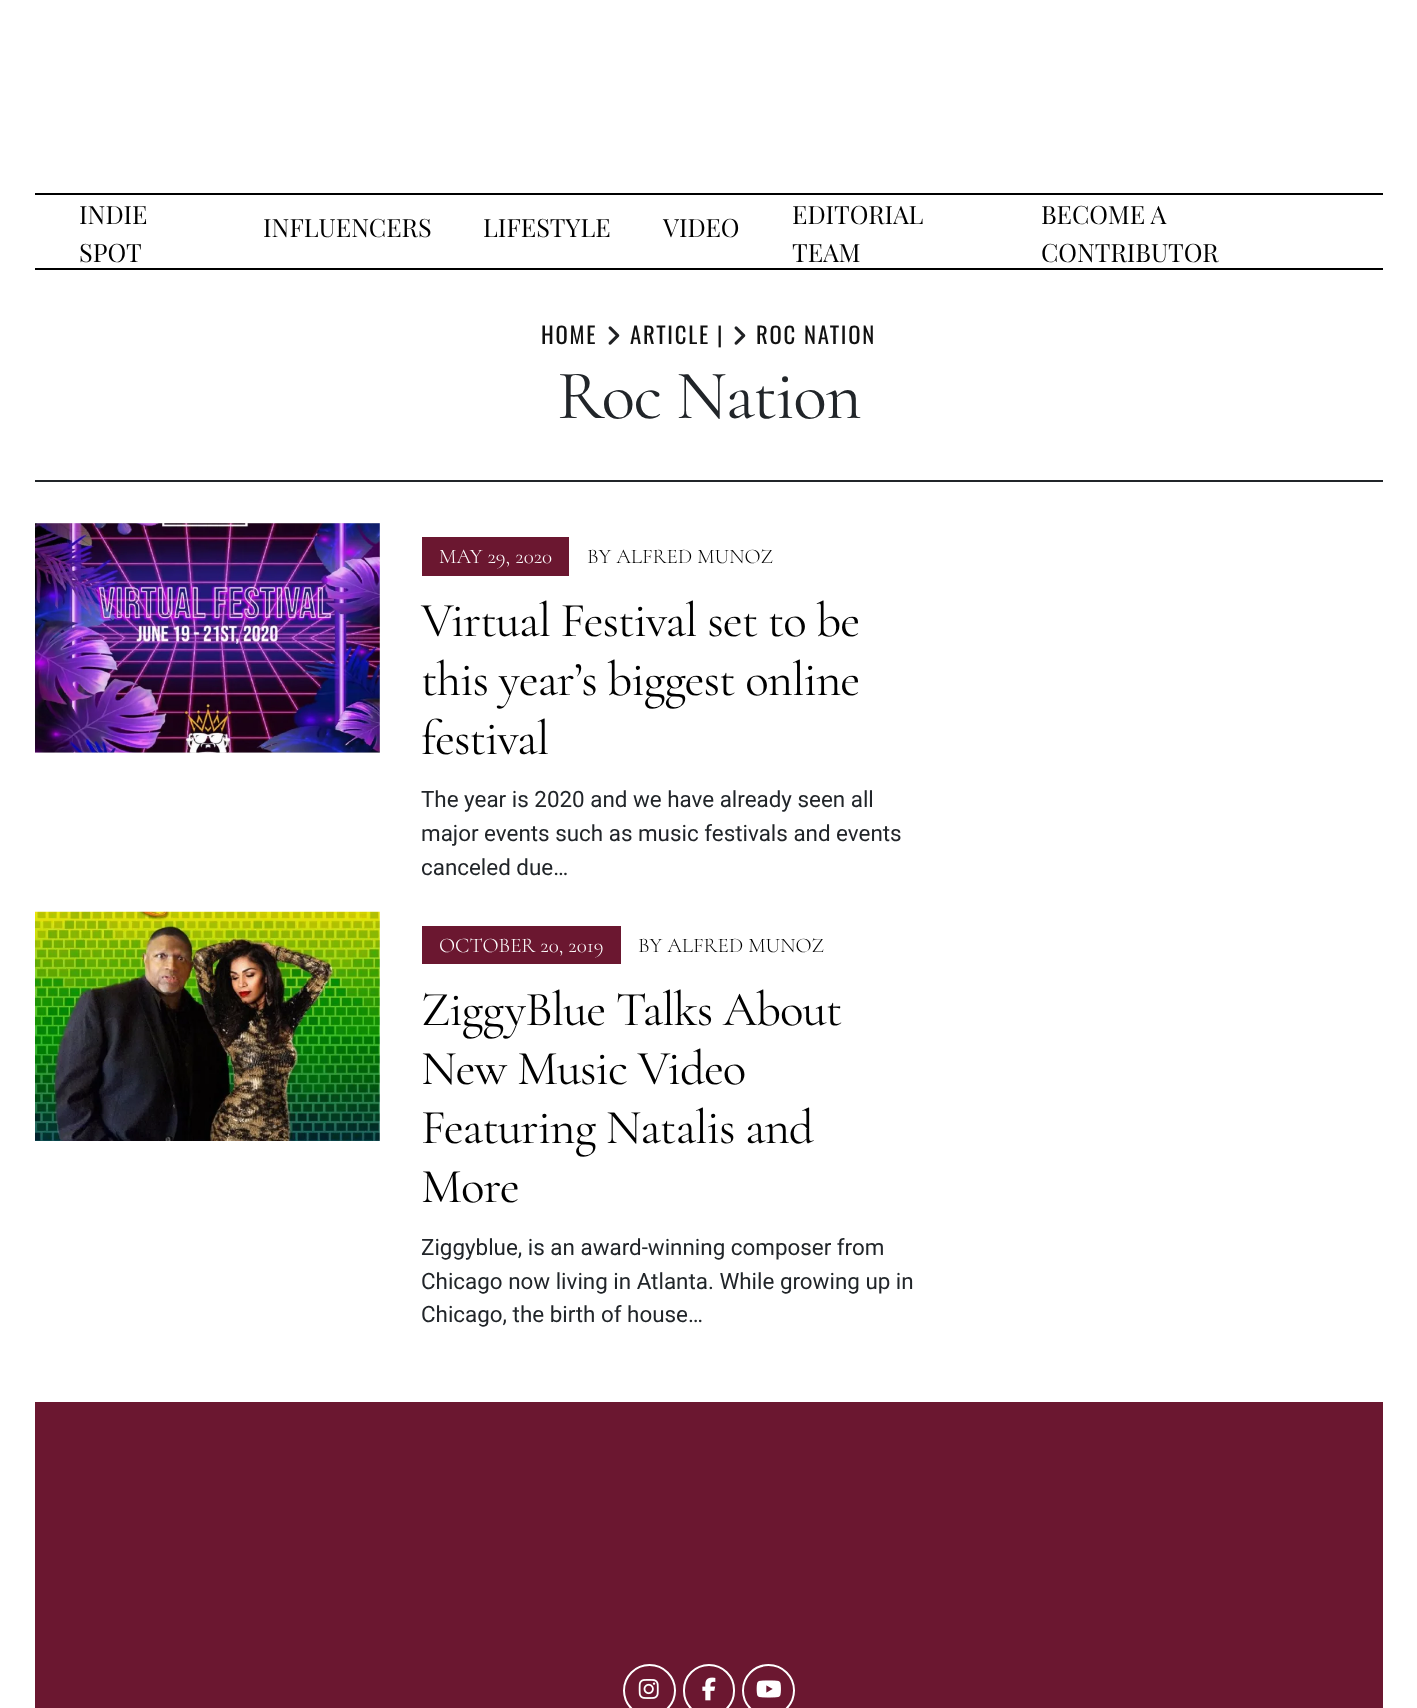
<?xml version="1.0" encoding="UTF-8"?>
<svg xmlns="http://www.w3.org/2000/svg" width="1417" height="1708">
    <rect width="100%" height="100%" fill="#FFFFFF"/>
    <rect x="35" y="193" width="1348" height="2" fill="#000000"/>
    <rect x="35" y="268" width="1348" height="2" fill="#000000"/>
    <text font-family="Playfair Display" font-size="25.25" fill="#000000">
        <tspan x="79" y="224">INDIE</tspan>
        <tspan x="79" y="262">SPOT</tspan>
    </text>
    <text x="263" y="237" font-family="Playfair Display" font-size="25.25" fill="#000000">INFLUENCERS</text>
    <text x="483" y="237" font-family="Playfair Display" font-size="25.25" fill="#000000">LIFESTYLE</text>
    <text x="663" y="237" font-family="Playfair Display" font-size="25.25" fill="#000000">VIDEO</text>
    <text font-family="Playfair Display" font-size="25.25" fill="#000000">
        <tspan x="792" y="224">EDITORIAL</tspan>
        <tspan x="792" y="262">TEAM</tspan>
    </text>
    <text font-family="Playfair Display" font-size="25.25" fill="#000000">
        <tspan x="1041" y="224">BECOME A</tspan>
        <tspan x="1041" y="262">CONTRIBUTOR</tspan>
    </text>
    <rect x="35" y="480" width="1348" height="2" fill="#212529"/>
    <text x="541" y="344" font-family="Oswald" font-size="22.75" letter-spacing="1.75" fill="#111111">HOME</text>
    <image x="608" y="326" width="12" height="19" href="img_01.png"/>
    <text x="630" y="344" font-family="Oswald" font-size="22.75" letter-spacing="1.75" fill="#111111">ARTICLE |</text>
    <image x="734" y="326" width="12" height="19" href="img_01.png"/>
    <text x="756" y="344" font-family="Oswald" font-size="22.75" letter-spacing="1.75" fill="#111111">ROC NATION</text>
    <text x="557" y="418" font-family="Cormorant Garamond" font-size="70" letter-spacing="-1.4" fill="#212529">Roc Nation</text>
    <rect x="35" y="523" width="345" height="230" fill="#DDDDDD"/>
    <image x="35" y="523" width="345" height="230" href="img_02.png"/>
    <rect x="422" y="537" width="147" height="39" fill="#6B1730"/>
    <text x="439" y="563" font-family="Cormorant Garamond" font-size="21" font-weight="300" fill="#FFFFFF">MAY 29, 2020</text>
    <text x="587" y="563" font-family="Cormorant Garamond" font-size="21" font-weight="300" fill="#000000">BY ALFRED MUNOZ</text>
    <text font-family="Cormorant Garamond" font-size="49" letter-spacing="-1" fill="#000000">
        <tspan x="421" y="636">Virtual Festival set to be</tspan>
        <tspan x="421" y="695">this year’s biggest online</tspan>
        <tspan x="421" y="754">festival</tspan>
    </text>
    <text font-family="Roboto" font-size="22.4" fill="#212529">
        <tspan x="421" y="807">The year is 2020 and we have already seen all</tspan>
        <tspan x="421" y="841">major events such as music festivals and events</tspan>
        <tspan x="421" y="875">canceled due…</tspan>
    </text>
    <image x="35" y="911" width="345" height="230" href="img_03.png"/>
    <rect x="422" y="926" width="199" height="38" fill="#6B1730"/>
    <text x="439" y="952" font-family="Cormorant Garamond" font-size="21" font-weight="300" fill="#FFFFFF">OCTOBER 20, 2019</text>
    <text x="638" y="952" font-family="Cormorant Garamond" font-size="21" font-weight="300" fill="#000000">BY ALFRED MUNOZ</text>
    <text font-family="Cormorant Garamond" font-size="49" letter-spacing="-1" fill="#000000">
        <tspan x="421" y="1025">ZiggyBlue Talks About</tspan>
        <tspan x="421" y="1084">New Music Video</tspan>
        <tspan x="421" y="1143">Featuring Natalis and</tspan>
        <tspan x="421" y="1202">More</tspan>
    </text>
    <text font-family="Roboto" font-size="22.4" fill="#212529">
        <tspan x="421" y="1255">Ziggyblue, is an award-winning composer from</tspan>
        <tspan x="421" y="1289">Chicago now living in Atlanta. While growing up in</tspan>
        <tspan x="421" y="1322">Chicago, the birth of house…</tspan>
    </text>
    <rect x="35" y="1402" width="1348" height="306" fill="#6B1730"/>
    <circle cx="649.5" cy="1690.5" r="25.5" fill="none" stroke="#FFFFFF" stroke-width="2"/>
    <image x="638" y="1679" width="21" height="20" href="img_04.png"/>
    <rect x="684" y="1665" width="50" height="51" rx="25" fill="none" stroke="#FFFFFF" stroke-width="2"/>
    <image x="702" y="1677" width="14" height="24" href="img_05.png"/>
    <circle cx="768.5" cy="1690.5" r="25.5" fill="none" stroke="#FFFFFF" stroke-width="2"/>
    <image x="756" y="1680" width="25" height="18" href="img_06.png"/>
</svg>
